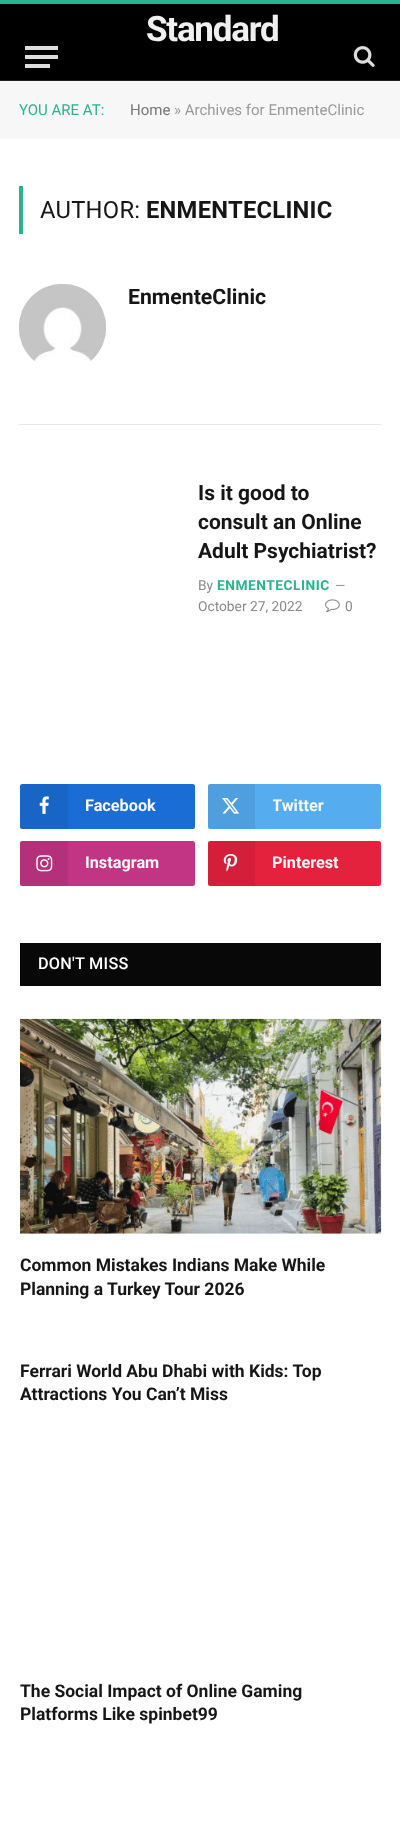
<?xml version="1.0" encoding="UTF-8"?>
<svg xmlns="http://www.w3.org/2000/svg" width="400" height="1827">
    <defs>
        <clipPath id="clip1"><rect x="273" y="784" width="51" height="45"/></clipPath>
        <clipPath id="clip2"><rect x="273" y="841" width="66" height="45"/></clipPath>
    </defs>
    <rect width="100%" height="100%" fill="#FFFFFF"/>
    <rect x="0" y="4" width="400" height="76" fill="#000000"/>
    <rect x="0" y="0" width="400" height="4" fill="#2AB391"/>
    <rect x="0" y="80" width="400" height="1" fill="#222222"/>
    <text x="146" y="41" font-family="Roboto" font-size="35" font-weight="700" letter-spacing="-1.25" fill="#F0F0F0">Standard</text>
    <rect x="25" y="64" width="25" height="4" fill="#DDDDDD"/>
    <rect x="25" y="46" width="33" height="4" fill="#DDDDDD"/>
    <rect x="25" y="55" width="33" height="4" fill="#DDDDDD"/>
    <image x="353" y="46" width="22" height="21" href="img_01.png"/>
    <rect x="0" y="81" width="400" height="58" fill="#F7F7F7"/>
    <text x="19" y="115" font-family="Roboto" font-size="15" fill="#2AB391">YOU ARE AT:</text>
    <text x="130" y="115" font-family="Roboto" font-size="15" fill="#777777">Home</text>
    <text x="174" y="115" font-family="Roboto" font-size="15" fill="#999999">» Archives for EnmenteClinic</text>
    <rect x="19" y="186" width="4" height="48" fill="#2AB391"/>
    <text x="40" y="218" font-family="Roboto" font-size="23.75" letter-spacing="0.25" fill="#161616">AUTHOR:</text>
    <text x="146" y="218" font-family="Roboto" font-size="23.75" font-weight="700" letter-spacing="0.25" fill="#161616">ENMENTECLINIC</text>
    <rect x="19" y="424" width="362" height="1" fill="#E8E8E8"/>
    <image x="19" y="284" width="87" height="78" href="img_02.png"/>
    <text x="128" y="304" font-family="Roboto" font-size="21.25" font-weight="700" fill="#161616">EnmenteClinic</text>
    <text font-family="Roboto" font-size="21" font-weight="700" fill="#161616">
        <tspan x="198" y="500">Is it good to</tspan>
        <tspan x="198" y="529">consult an Online</tspan>
        <tspan x="198" y="558">Adult Psychiatrist?</tspan>
    </text>
    <text x="198" y="590" font-family="Roboto" font-size="13.75" fill="#8A8A8A">By</text>
    <text x="217" y="590" font-family="Roboto" font-size="13.75" font-weight="700" letter-spacing="0.5" fill="#2AB391">ENMENTECLINIC</text>
    <text x="335" y="590" font-family="Roboto" font-size="13" fill="#8A8A8A">—</text>
    <text x="198" y="611" font-family="Roboto" font-size="13.75" fill="#8A8A8A">October 27, 2022</text>
    <image x="325" y="599" width="15" height="14" href="img_03.png"/>
    <text x="345" y="611" font-family="Roboto" font-size="13.75" fill="#8A8A8A">0</text>
    <rect x="20" y="784" width="175" height="45" rx="2.5" fill="#1A6DD4"/>
    <rect x="20" y="784" width="48" height="45" fill="#000000" fill-opacity="0.07"/>
    <image x="39" y="796" width="10" height="18" href="img_04.png"/>
    <text x="85" y="811" font-family="Roboto" font-size="16.25" font-weight="700" fill="#F8F8F8">Facebook</text>
    <rect x="208" y="784" width="173" height="45" rx="2.5" fill="#55ACEF"/>
    <rect x="208" y="784" width="47" height="45" fill="#000000" fill-opacity="0.07"/>
    <image x="222" y="798" width="18" height="16" href="img_05.png"/>
    <g clip-path="url(#clip1)">
        <text x="272" y="811" font-family="Roboto" font-size="16.25" font-weight="700" fill="#F8F8F8">Twitter</text>
    </g>
    <rect x="20" y="841" width="175" height="45" rx="2.5" fill="#C13584"/>
    <rect x="20" y="841" width="48" height="45" fill="#000000" fill-opacity="0.07"/>
    <image x="36" y="855" width="17" height="17" href="img_06.png"/>
    <text x="85" y="868" font-family="Roboto" font-size="16.25" font-weight="700" fill="#F8F8F8">Instagram</text>
    <rect x="208" y="841" width="173" height="45" rx="2.5" fill="#E4223E"/>
    <rect x="208" y="841" width="47" height="45" fill="#000000" fill-opacity="0.07"/>
    <image x="223" y="853" width="15" height="19" href="img_07.png"/>
    <g clip-path="url(#clip2)">
        <text x="272" y="868" font-family="Roboto" font-size="16.25" font-weight="700" fill="#F8F8F8">Pinterest</text>
    </g>
    <rect x="20" y="943" width="361" height="43" fill="#080808"/>
    <text x="38" y="969" font-family="Roboto" font-size="16.25" font-weight="500" letter-spacing="0.25" fill="#FFFFFF">DON'T MISS</text>
    <image x="20" y="1018" width="362" height="216" href="img_08.png"/>
    <text font-family="Roboto" font-size="17.5" font-weight="700" fill="#161616">
        <tspan x="20" y="1271">Common Mistakes Indians Make While</tspan>
        <tspan x="20" y="1295">Planning a Turkey Tour 2026</tspan>
    </text>
    <text font-family="Roboto" font-size="17.5" font-weight="700" fill="#161616">
        <tspan x="20" y="1377">Ferrari World Abu Dhabi with Kids: Top</tspan>
        <tspan x="20" y="1400">Attractions You Can’t Miss</tspan>
    </text>
    <text font-family="Roboto" font-size="17.5" font-weight="700" fill="#161616">
        <tspan x="20" y="1697">The Social Impact of Online Gaming</tspan>
        <tspan x="20" y="1720">Platforms Like spinbet99</tspan>
    </text>
</svg>
